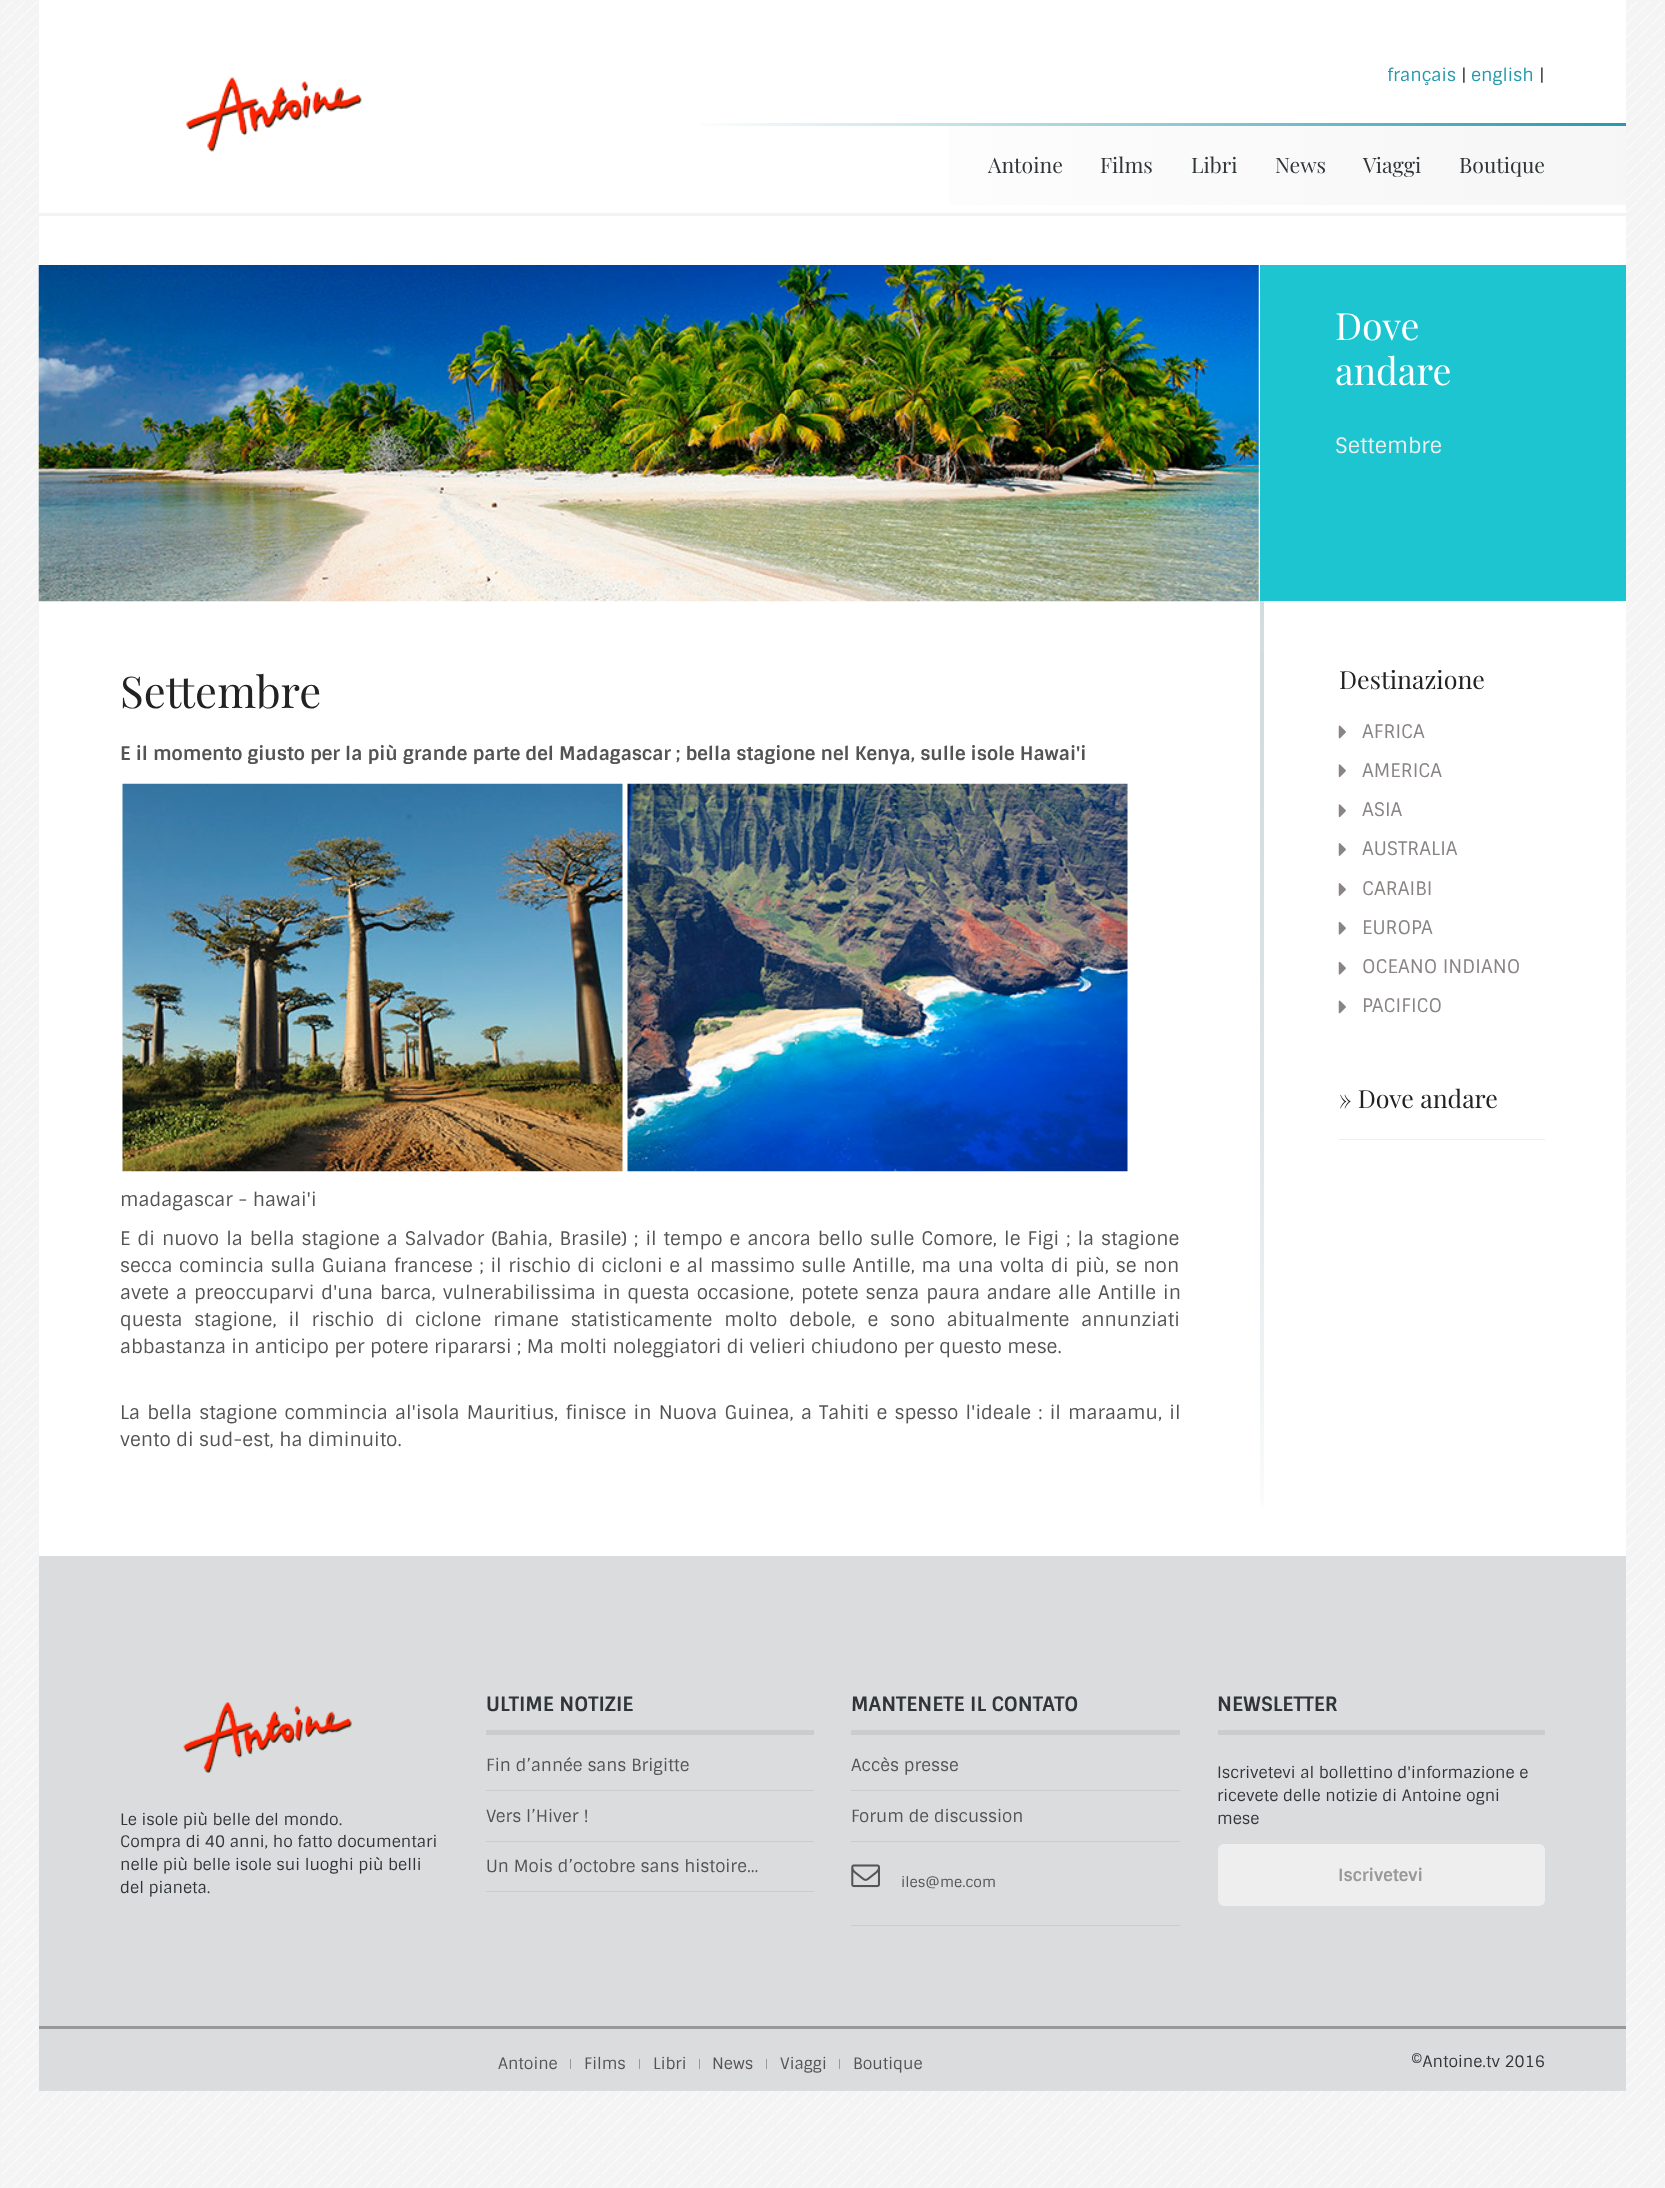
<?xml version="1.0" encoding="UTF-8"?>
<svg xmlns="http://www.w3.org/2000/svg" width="1665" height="2188">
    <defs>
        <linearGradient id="g1" gradientUnits="userSpaceOnUse" x1="689" y1="164" x2="1626" y2="164"><stop offset="0" stop-color="#FFFFFF"/><stop offset="1" stop-color="#F6F6F6"/></linearGradient>
        <linearGradient id="g2" gradientUnits="userSpaceOnUse" x1="689" y1="124" x2="1626" y2="124"><stop offset="0" stop-color="#FFFFFF"/><stop offset="1" stop-color="#259AAD"/></linearGradient>
        <linearGradient id="g3" gradientUnits="userSpaceOnUse" x1="1262" y1="601" x2="1262" y2="1556"><stop offset="0" stop-color="#D2DCDF"/><stop offset="1" stop-color="#FFFFFF"/></linearGradient>
        <linearGradient id="g4" gradientUnits="userSpaceOnUse" x1="1262" y1="601" x2="1262" y2="1556"><stop offset="0" stop-color="#D2DCDF"/><stop offset="1" stop-color="#D2DCDF" stop-opacity="0"/></linearGradient>
    </defs>
    <rect width="100%" height="100%" fill="#FFFFFF"/>
    <image x="0" y="0" width="1665" height="2188" href="img_01.png"/>
    <rect x="39" y="0" width="1587" height="1556" fill="#FFFFFF"/>
    <rect x="39" y="213" width="1587" height="3" fill="#F4F3F3"/>
    <image x="186" y="77" width="176" height="75" href="img_02.png"/>
    <text x="1387" y="81" font-family="Sintony" font-size="17.5" fill="#259AAD">français</text>
    <text x="1461" y="81" font-family="Sintony" font-size="17.5" fill="#495156">|</text>
    <text x="1471" y="81" font-family="Sintony" font-size="17.5" fill="#259AAD">english</text>
    <text x="1539" y="81" font-family="Sintony" font-size="17.5" fill="#495156">|</text>
    <rect x="949" y="126" width="677" height="79" fill="url(#g1)"/>
    <rect x="700" y="123" width="926" height="3" fill="url(#g2)"/>
    <text x="988" y="173" font-family="Playfair Display" font-size="21.25" fill="#303538">Antoine</text>
    <text x="1100" y="173" font-family="Playfair Display" font-size="21.25" fill="#303538">Films</text>
    <text x="1191" y="173" font-family="Playfair Display" font-size="21.25" fill="#303538">Libri</text>
    <text x="1275" y="173" font-family="Playfair Display" font-size="21.25" fill="#303538">News</text>
    <text x="1363" y="173" font-family="Playfair Display" font-size="21.25" fill="#303538">Viaggi</text>
    <text x="1459" y="173" font-family="Playfair Display" font-size="21.25" fill="#303538">Boutique</text>
    <image x="38" y="265" width="1221" height="337" href="img_03.png"/>
    <rect x="1260" y="265" width="366" height="336" fill="#1CC5CF"/>
    <text font-family="Playfair Display" font-size="37.5" fill="#FFFFFF">
        <tspan x="1335" y="340">Dove</tspan>
        <tspan x="1335" y="385">andare</tspan>
    </text>
    <text x="1335" y="453" font-family="Sintony" font-size="21.25" fill="#EEEEEE">Settembre</text>
    <rect x="1260" y="601" width="4" height="902" fill="url(#g3)"/>
    <rect x="1260" y="651" width="4" height="858" fill="url(#g4)"/>
    <text x="120" y="708" font-family="Playfair Display" font-size="43.75" fill="#222222">Settembre</text>
    <text x="120" y="760" font-family="Sintony" font-size="18.75" font-weight="700" fill="#565353">E il momento giusto per la più grande parte del Madagascar ; bella stagione nel Kenya, sulle isole Hawai'i</text>
    <image x="122" y="783" width="501" height="389" href="img_04.png"/>
    <image x="627" y="783" width="501" height="389" href="img_05.png"/>
    <text x="120" y="1206" font-family="Sintony" font-size="18.75" fill="#565353">madagascar - hawai'i</text>
    <text font-family="Sintony" font-size="18.75" fill="#565353">
        <tspan x="120" y="1245" word-spacing="1.6">E di nuovo la bella stagione a Salvador (Bahia, Brasile) ; il tempo e ancora bello sulle Comore, le Figi ; la stagione</tspan>
        <tspan x="120" y="1272" word-spacing="1.25">secca comincia sulla Guiana francese ; il rischio di cicloni e al massimo sulle Antille, ma una volta di più, se non</tspan>
        <tspan x="120" y="1299" word-spacing="1.5">avete a preoccuparvi d'una barca, vulnerabilissima in questa occasione, potete senza paura andare alle Antille in</tspan>
        <tspan x="120" y="1326" word-spacing="6.4">questa stagione, il rischio di ciclone rimane statisticamente molto debole, e sono abitualmente annunziati</tspan>
        <tspan x="120" y="1353">abbastanza in anticipo per potere ripararsi ; Ma molti noleggiatori di velieri chiudono per questo mese.</tspan>
    </text>
    <text font-family="Sintony" font-size="18.75" fill="#565353">
        <tspan x="120" y="1419" word-spacing="1.75">La bella stagione commincia al'isola Mauritius, finisce in Nuova Guinea, a Tahiti e spesso l'ideale : il maraamu, il</tspan>
        <tspan x="120" y="1446">vento di sud-est, ha diminuito.</tspan>
    </text>
    <text x="1339" y="689" font-family="Playfair Display" font-size="25" fill="#222222">Destinazione</text>
    <image x="1338" y="725" width="8" height="14" href="img_06.png"/>
    <text x="1362" y="738" font-family="Sintony" font-size="18.75" fill="#8A8585">AFRICA</text>
    <image x="1338" y="764" width="8" height="14" href="img_07.png"/>
    <text x="1362" y="777" font-family="Sintony" font-size="18.75" fill="#8A8585">AMERICA</text>
    <image x="1338" y="804" width="8" height="14" href="img_07.png"/>
    <text x="1362" y="816" font-family="Sintony" font-size="18.75" fill="#8A8585">ASIA</text>
    <image x="1338" y="843" width="8" height="13" href="img_08.png"/>
    <text x="1362" y="855" font-family="Sintony" font-size="18.75" fill="#8A8585">AUSTRALIA</text>
    <image x="1338" y="883" width="8" height="13" href="img_08.png"/>
    <text x="1362" y="895" font-family="Sintony" font-size="18.75" fill="#8A8585">CARAIBI</text>
    <image x="1338" y="921" width="8" height="14" href="img_09.png"/>
    <text x="1362" y="934" font-family="Sintony" font-size="18.75" fill="#8A8585">EUROPA</text>
    <image x="1338" y="961" width="8" height="14" href="img_09.png"/>
    <text x="1362" y="973" font-family="Sintony" font-size="18.75" fill="#8A8585">OCEANO INDIANO</text>
    <image x="1338" y="1000" width="8" height="14" href="img_06.png"/>
    <text x="1362" y="1012" font-family="Sintony" font-size="18.75" fill="#8A8585">PACIFICO</text>
    <text x="1339" y="1108" font-family="Playfair Display" font-size="25" fill="#222222">» Dove andare</text>
    <rect x="1339" y="1139" width="206" height="1" fill="#EEEEEE"/>
    <rect x="39" y="1556" width="1587" height="470" fill="#DADCDD"/>
    <rect x="39" y="2026" width="1587" height="3" fill="#999999"/>
    <image x="183" y="1702" width="169" height="71" href="img_10.png"/>
    <text font-family="Sintony" font-size="15.9" fill="#303538">
        <tspan x="120" y="1825">Le isole più belle del mondo.</tspan>
        <tspan x="120" y="1847">Compra di 40 anni, ho fatto documentari</tspan>
        <tspan x="120" y="1870">nelle più belle isole sui luoghi più belli</tspan>
        <tspan x="120" y="1893">del pianeta.</tspan>
    </text>
    <rect x="486" y="1730" width="328" height="5" fill="#CCCCCC"/>
    <text x="486" y="1711" font-family="Sintony" font-size="19.75" font-weight="700" fill="#303538">ULTIME NOTIZIE</text>
    <rect x="486" y="1790" width="328" height="1" fill="#CCCCCC"/>
    <text x="486" y="1771" font-family="Sintony" font-size="16.9" fill="#565353">Fin d’année sans Brigitte</text>
    <rect x="486" y="1841" width="328" height="1" fill="#CCCCCC"/>
    <text x="486" y="1822" font-family="Sintony" font-size="16.9" fill="#565353">Vers l’Hiver !</text>
    <rect x="486" y="1891" width="328" height="1" fill="#CCCCCC"/>
    <text x="486" y="1872" font-family="Sintony" font-size="16.9" fill="#565353">Un Mois d’octobre sans histoire...</text>
    <rect x="851" y="1730" width="329" height="5" fill="#CCCCCC"/>
    <text x="851" y="1711" font-family="Sintony" font-size="19.75" font-weight="700" fill="#303538">MANTENETE IL CONTATO</text>
    <rect x="851" y="1790" width="329" height="1" fill="#CCCCCC"/>
    <text x="851" y="1771" font-family="Sintony" font-size="16.9" fill="#565353">Accès presse</text>
    <rect x="851" y="1841" width="329" height="1" fill="#CCCCCC"/>
    <text x="851" y="1822" font-family="Sintony" font-size="16.9" fill="#565353">Forum de discussion</text>
    <rect x="851" y="1925" width="329" height="1" fill="#CCCCCC"/>
    <image x="851" y="1864" width="29" height="24" href="img_11.png"/>
    <text x="901" y="1887" font-family="Sintony" font-size="14.25" fill="#565353">iles@me.com</text>
    <rect x="1218" y="1730" width="327" height="5" fill="#CCCCCC"/>
    <text x="1217" y="1711" font-family="Sintony" font-size="19.75" font-weight="700" fill="#303538">NEWSLETTER</text>
    <text font-family="Sintony" font-size="15.9" fill="#303538">
        <tspan x="1217" y="1778">Iscrivetevi al bollettino d'informazione e</tspan>
        <tspan x="1217" y="1801">ricevete delle notizie di Antoine ogni</tspan>
        <tspan x="1217" y="1824">mese</tspan>
    </text>
    <rect x="1218" y="1844" width="327" height="62" rx="6" fill="#EEEEEE"/>
    <text x="1338" y="1881" font-family="Sintony" font-size="16.9" font-weight="700" fill="#999999">Iscrivetevi</text>
    <rect x="39" y="2029" width="1587" height="62" fill="#DADCDD"/>
    <rect x="570" y="2059" width="1" height="10" fill="#999999"/>
    <text x="498" y="2069" font-family="Sintony" font-size="15.9" fill="#565353">Antoine</text>
    <rect x="639" y="2059" width="1" height="10" fill="#999999"/>
    <text x="584" y="2069" font-family="Sintony" font-size="15.9" fill="#565353">Films</text>
    <rect x="699" y="2059" width="1" height="10" fill="#999999"/>
    <text x="653" y="2069" font-family="Sintony" font-size="15.9" fill="#565353">Libri</text>
    <rect x="766" y="2059" width="1" height="10" fill="#999999"/>
    <text x="712" y="2069" font-family="Sintony" font-size="15.9" fill="#565353">News</text>
    <rect x="839" y="2059" width="1" height="10" fill="#999999"/>
    <text x="780" y="2069" font-family="Sintony" font-size="15.9" fill="#565353">Viaggi</text>
    <text x="853" y="2069" font-family="Sintony" font-size="15.9" fill="#565353">Boutique</text>
    <text x="1411" y="2067" font-family="Sintony" font-size="15.9" fill="#303538">©Antoine.tv 2016</text>
</svg>
